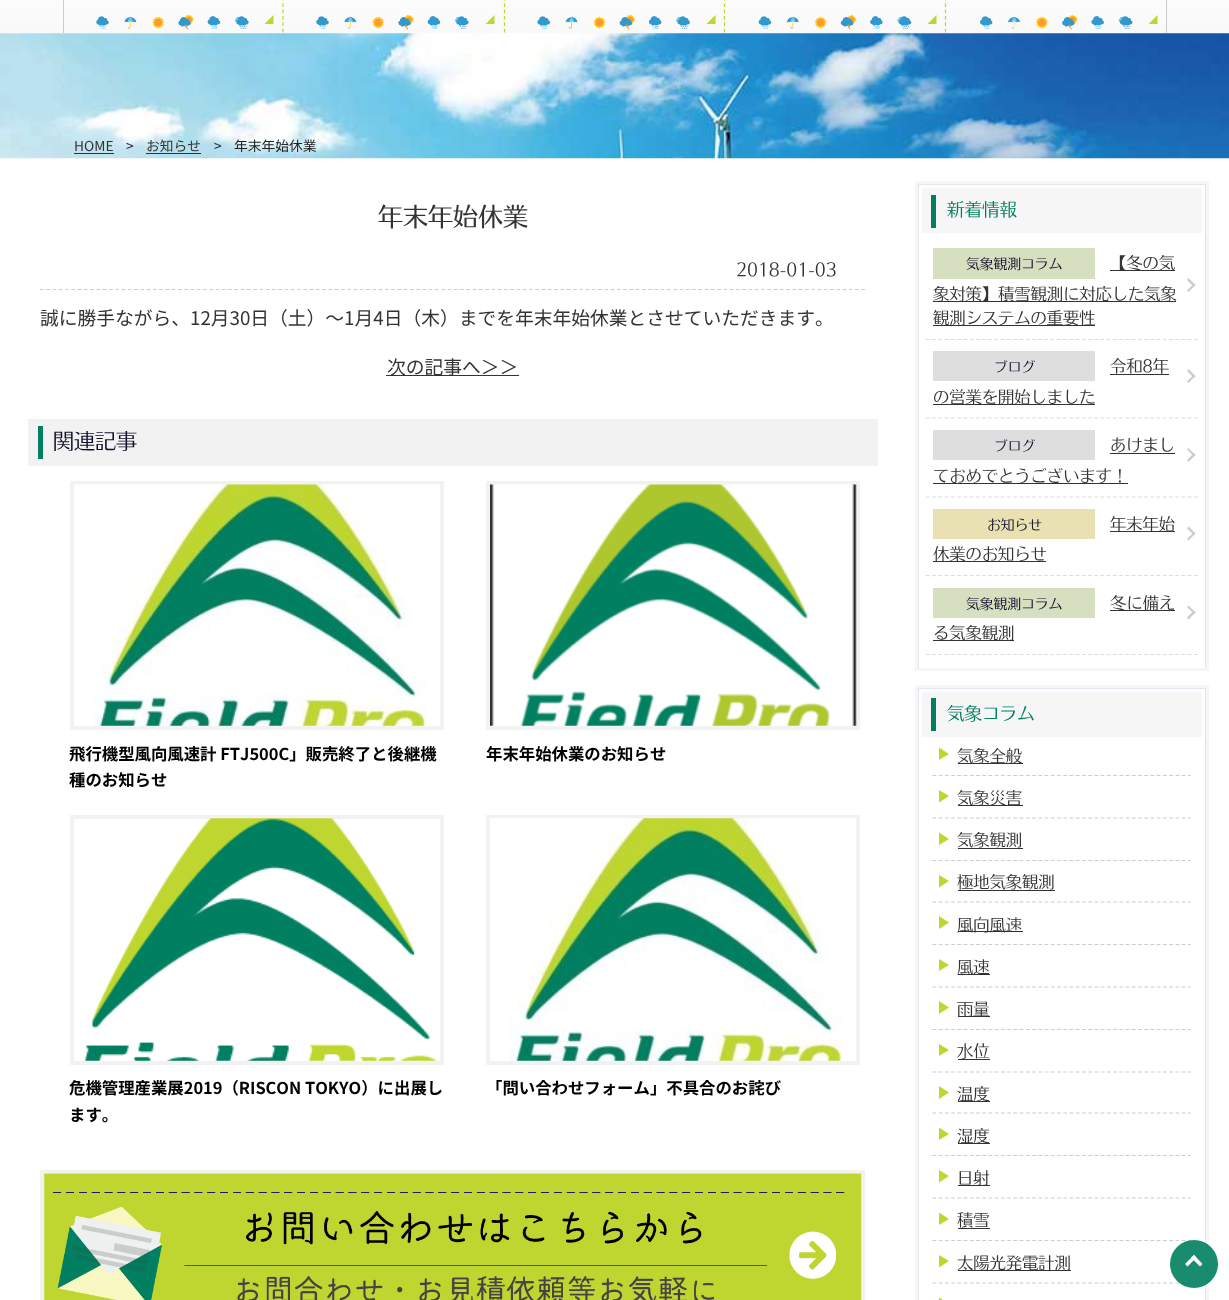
<?xml version="1.0" encoding="UTF-8"?>
<svg xmlns="http://www.w3.org/2000/svg" width="1229" height="1300">
    <style>*{font-kerning:none!important;font-variant-ligatures:none!important}</style>
    <defs>
        <linearGradient id="g1" gradientUnits="userSpaceOnUse" x1="615" y1="-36" x2="615" y2="34"><stop offset="0" stop-color="#FFFFFF"/><stop offset="0.98" stop-color="#F9F9F9"/></linearGradient>
    </defs>
    <rect width="100%" height="100%" fill="#FFFFFF"/>
    <rect x="0" y="0" width="1229" height="34" fill="url(#g1)"/>
    <image x="96" y="14" width="153" height="16" href="img_01.png"/>
    <path d="M 283 -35 V 32.5" fill="none" stroke="#BED62F" stroke-width="1.2" stroke-dasharray="3.75 2.62"/>
    <rect x="63" y="0" width="1" height="33" fill="#CCCCCC"/>
    <path d="M 264.5 24 L 273.5 15 V 24 Z" fill="#BED62F"/>
    <image x="316" y="14" width="153" height="16" href="img_01.png"/>
    <path d="M 504.5 -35 V 32.5" fill="none" stroke="#BED62F" stroke-width="1.2" stroke-dasharray="3.75 2.62"/>
    <path d="M 485.5 24 L 494.5 15 V 24 Z" fill="#BED62F"/>
    <image x="537" y="14" width="153" height="17" href="img_02.png"/>
    <path d="M 724.5 -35 V 32.5" fill="none" stroke="#BED62F" stroke-width="1.2" stroke-dasharray="3.75 2.62"/>
    <path d="M 706.5 24 L 715.5 15 V 24 Z" fill="#BED62F"/>
    <image x="758" y="14" width="154" height="17" href="img_03.png"/>
    <path d="M 945.5 -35 V 32.5" fill="none" stroke="#BED62F" stroke-width="1.2" stroke-dasharray="3.75 2.62"/>
    <path d="M 927.5 24 L 936.5 15 V 24 Z" fill="#BED62F"/>
    <image x="980" y="14" width="153" height="17" href="img_04.png"/>
    <rect x="1166" y="0" width="1" height="33" fill="#CCCCCC"/>
    <path d="M 1148.5 24 L 1157.5 15 V 24 Z" fill="#BED62F"/>
    <image x="0" y="33" width="1229" height="126" href="img_05.png"/>
    <text x="74" y="151" font-family="Noto Sans JP" font-size="13.75" fill="#333333">HOME</text>
    <rect x="74" y="153" width="40" height="1" fill="#333333"/>
    <text x="126" y="151" font-family="Noto Sans JP" font-size="13.75" fill="#222222">&gt;</text>
    <text x="146" y="151" font-family="Noto Sans JP" font-size="13.75" fill="#333333">お知らせ</text>
    <rect x="146" y="153" width="55" height="1" fill="#333333"/>
    <text x="214" y="151" font-family="Noto Sans JP" font-size="13.75" fill="#222222">&gt;</text>
    <text x="234" y="151" font-family="Noto Sans JP" font-size="13.75" fill="#222222">年末年始休業</text>
    <text x="378" y="226" font-family="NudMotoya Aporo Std" font-size="25" fill="#333333">年末年始休業</text>
    <path d="M 40 289.5 H 865" fill="none" stroke="#CCCCCC" stroke-width="1.2" stroke-dasharray="3.75 2.52"/>
    <text x="736" y="276" font-family="NudMotoya Aporo Std" font-size="17.5" font-weight="300" fill="#333333">2018-01-03</text>
    <text x="40" y="325" font-family="Noto Sans JP" font-size="18.75" fill="#333333">誠に勝手ながら、12月30日（土）～1月4日（木）までを年末年始休業とさせていただきます。</text>
    <rect x="386" y="375" width="133" height="1" fill="#333333"/>
    <text x="387" y="374" font-family="Noto Sans JP" font-size="18.75" fill="#333333">次の記事へ＞＞</text>
    <rect x="28" y="419" width="850" height="47" fill="#F2F2F2"/>
    <rect x="38" y="426" width="5" height="33" fill="#008060"/>
    <text x="53" y="449" font-family="NudMotoya Aporo Std" font-size="21" font-weight="300" fill="#0E0E29">関連記事</text>
    <rect x="72" y="483" width="370" height="245" fill="none" stroke="#F2F2F2" stroke-width="4"/>
    <image x="74" y="484" width="366" height="242" href="img_06.png"/>
    <text font-family="Noto Sans JP" font-size="16.4" font-weight="700" fill="#000000">
        <tspan x="69" y="760">飛行機型風向風速計 FTJ500C」販売終了と後継機</tspan>
        <tspan x="69" y="786">種のお知らせ</tspan>
    </text>
    <rect x="488" y="483" width="370" height="245" fill="none" stroke="#F2F2F2" stroke-width="4"/>
    <image x="490" y="484" width="367" height="242" href="img_07.png"/>
    <text x="486" y="760" font-family="Noto Sans JP" font-size="16.4" font-weight="700" fill="#000000">年末年始休業のお知らせ</text>
    <rect x="72" y="817" width="370" height="246" fill="none" stroke="#F2F2F2" stroke-width="4"/>
    <image x="84" y="818" width="354" height="243" href="img_08.png"/>
    <text font-family="Noto Sans JP" font-size="16.4" font-weight="700" fill="#000000">
        <tspan x="69" y="1094">危機管理産業展2019（RISCON TOKYO）に出展し</tspan>
        <tspan x="69" y="1121">ます。</tspan>
    </text>
    <rect x="488" y="817" width="370" height="246" fill="none" stroke="#F2F2F2" stroke-width="4"/>
    <image x="490" y="818" width="366" height="243" href="img_09.png"/>
    <text x="486" y="1094" font-family="Noto Sans JP" font-size="16.4" font-weight="700" fill="#000000">「問い合わせフォーム」不具合のお詫び</text>
    <rect x="42" y="1172" width="821" height="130" fill="none" stroke="#F2F2F2" stroke-width="4"/>
    <image x="43" y="1173" width="819" height="127" href="img_10.png"/>
    <rect x="918.5" y="184.5" width="287" height="484" fill="none" stroke="#E5E4EF"/>
    <rect x="916.5" y="182.5" width="291" height="487" fill="none" stroke="#F6F6F6" stroke-width="3"/>
    <rect x="922" y="188" width="280" height="45" fill="#F6F6F6"/>
    <rect x="931" y="195" width="5" height="33" fill="#008060"/>
    <text x="947" y="216" font-family="NudMotoya Aporo Std" font-size="17.5" font-weight="300" fill="#008060">新着情報</text>
    <path d="M 926 339.5 H 1197.5" fill="none" stroke="#DCDCDC" stroke-width="1.2" stroke-dasharray="3.75 2.48"/>
    <rect x="933" y="248" width="162" height="31" fill="#D6DFC0"/>
    <text x="966" y="269" font-family="NudMotoya Aporo Std" font-size="13.75" font-weight="300" fill="#0E0E29">気象観測コラム</text>
    <rect x="1110" y="270" width="65" height="1" fill="#333333"/>
    <text x="1110" y="269" font-family="NudMotoya Aporo Std" font-size="16.25" font-weight="300" fill="#333333">【冬の気</text>
    <rect x="933" y="301" width="243" height="1" fill="#333333"/>
    <text x="933" y="300" font-family="NudMotoya Aporo Std" font-size="16.25" font-weight="300" fill="#333333">象対策】積雪観測に対応した気象</text>
    <path d="M 1187 280 L 1188.5 278 L 1195.5 285 L 1194 287 Z" fill="#CCCCCC"/>
    <path d="M 1187 290.5 L 1194 283.5 L 1195.5 285 L 1188.5 292 Z" fill="#CCCCCC"/>
    <rect x="933" y="325" width="162" height="1" fill="#333333"/>
    <text x="933" y="324" font-family="NudMotoya Aporo Std" font-size="16.25" font-weight="300" fill="#333333">観測システムの重要性</text>
    <path d="M 926 418 H 1197.5" fill="none" stroke="#DCDCDC" stroke-width="1.2" stroke-dasharray="3.75 2.48"/>
    <rect x="933" y="351" width="162" height="30" fill="#DEDEDE"/>
    <text x="994" y="372" font-family="NudMotoya Aporo Std" font-size="13.75" font-weight="300" fill="#0E0E29">ブログ</text>
    <text x="1110" y="372" font-family="NudMotoya Aporo Std" font-size="16.25" font-weight="300" fill="#333333">令和8年</text>
    <rect x="1110" y="374" width="59" height="1" fill="#333333"/>
    <path d="M 1187 371 L 1188.5 369 L 1195.5 376 L 1194 378 Z" fill="#CCCCCC"/>
    <path d="M 1187 381.5 L 1194 374.5 L 1195.5 376 L 1188.5 383 Z" fill="#CCCCCC"/>
    <rect x="933" y="404" width="162" height="1" fill="#333333"/>
    <text x="933" y="403" font-family="NudMotoya Aporo Std" font-size="16.25" font-weight="300" fill="#333333">の営業を開始しました</text>
    <path d="M 926 497 H 1197.5" fill="none" stroke="#DCDCDC" stroke-width="1.2" stroke-dasharray="3.75 2.48"/>
    <rect x="933" y="430" width="162" height="30" fill="#DEDEDE"/>
    <text x="994" y="451" font-family="NudMotoya Aporo Std" font-size="13.75" font-weight="300" fill="#0E0E29">ブログ</text>
    <text x="1110" y="451" font-family="NudMotoya Aporo Std" font-size="16.25" font-weight="300" fill="#333333">あけまし</text>
    <rect x="1110" y="453" width="65" height="1" fill="#333333"/>
    <path d="M 1187 449.5 L 1188.5 448 L 1195.5 455 L 1194 456.5 Z" fill="#CCCCCC"/>
    <path d="M 1187 460 L 1194 453 L 1195.5 455 L 1188.5 462 Z" fill="#CCCCCC"/>
    <rect x="933" y="483" width="195" height="1" fill="#333333"/>
    <text x="933" y="482" font-family="NudMotoya Aporo Std" font-size="16.25" font-weight="300" fill="#333333">ておめでとうございます！</text>
    <path d="M 926 575.5 H 1197.5" fill="none" stroke="#DCDCDC" stroke-width="1.2" stroke-dasharray="3.75 2.48"/>
    <rect x="933" y="509" width="162" height="30" fill="#EAE1B2"/>
    <text x="987" y="530" font-family="NudMotoya Aporo Std" font-size="13.75" font-weight="300" fill="#0E0E29">お知らせ</text>
    <rect x="1110" y="531" width="65" height="1" fill="#333333"/>
    <text x="1110" y="530" font-family="NudMotoya Aporo Std" font-size="16.25" font-weight="300" fill="#333333">年末年始</text>
    <path d="M 1187 528.5 L 1188.5 526.5 L 1195.5 533.5 L 1194 535.5 Z" fill="#CCCCCC"/>
    <path d="M 1187 539 L 1194 532 L 1195.5 533.5 L 1188.5 540.5 Z" fill="#CCCCCC"/>
    <rect x="933" y="561" width="113" height="1" fill="#333333"/>
    <text x="933" y="560" font-family="NudMotoya Aporo Std" font-size="16.25" font-weight="300" fill="#333333">休業のお知らせ</text>
    <path d="M 926 654.5 H 1197.5" fill="none" stroke="#DCDCDC" stroke-width="1.2" stroke-dasharray="3.75 2.48"/>
    <rect x="933" y="588" width="162" height="30" fill="#D6DFC0"/>
    <text x="966" y="609" font-family="NudMotoya Aporo Std" font-size="13.75" font-weight="300" fill="#0E0E29">気象観測コラム</text>
    <rect x="1110" y="610" width="65" height="1" fill="#333333"/>
    <text x="1110" y="609" font-family="NudMotoya Aporo Std" font-size="16.25" font-weight="300" fill="#333333">冬に備え</text>
    <path d="M 1187 607 L 1188.5 605.5 L 1195.5 612.5 L 1194 614 Z" fill="#CCCCCC"/>
    <path d="M 1187 617.5 L 1194 610.5 L 1195.5 612.5 L 1188.5 619.5 Z" fill="#CCCCCC"/>
    <rect x="933" y="640" width="81" height="1" fill="#333333"/>
    <text x="933" y="639" font-family="NudMotoya Aporo Std" font-size="16.25" font-weight="300" fill="#333333">る気象観測</text>
    <rect x="918.5" y="688.5" width="287" height="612" fill="none" stroke="#E5E4EF"/>
    <rect x="916.5" y="686.5" width="291" height="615" fill="none" stroke="#F6F6F6" stroke-width="3"/>
    <rect x="922" y="692" width="280" height="45" fill="#F6F6F6"/>
    <rect x="931" y="698" width="5" height="33" fill="#008060"/>
    <text x="947" y="720" font-family="NudMotoya Aporo Std" font-size="17.5" font-weight="300" fill="#008060">気象コラム</text>
    <path d="M 932.5 775.5 H 1191" fill="none" stroke="#CCCCCC" stroke-width="1.2" stroke-dasharray="3.75 2.48"/>
    <path d="M 939 760 V 747.5 L 949 754 Z" fill="#BED62F"/>
    <rect x="958" y="763" width="65" height="1" fill="#333333"/>
    <text x="957" y="762" font-family="NudMotoya Aporo Std" font-size="16.25" font-weight="300" fill="#333333">気象全般</text>
    <path d="M 932.5 818 H 1191" fill="none" stroke="#CCCCCC" stroke-width="1.2" stroke-dasharray="3.75 2.48"/>
    <path d="M 939 802.5 V 790 L 949 796 Z" fill="#BED62F"/>
    <rect x="958" y="805" width="65" height="1" fill="#333333"/>
    <text x="957" y="804" font-family="NudMotoya Aporo Std" font-size="16.25" font-weight="300" fill="#333333">気象災害</text>
    <path d="M 932.5 860.5 H 1191" fill="none" stroke="#CCCCCC" stroke-width="1.2" stroke-dasharray="3.75 2.48"/>
    <path d="M 939 845 V 832.5 L 949 839 Z" fill="#BED62F"/>
    <text x="957" y="846" font-family="NudMotoya Aporo Std" font-size="16.25" font-weight="300" fill="#333333">気象観測</text>
    <rect x="958" y="848" width="65" height="1" fill="#333333"/>
    <path d="M 932.5 902 H 1191" fill="none" stroke="#CCCCCC" stroke-width="1.2" stroke-dasharray="3.75 2.48"/>
    <path d="M 939 887.5 V 875 L 949 881 Z" fill="#BED62F"/>
    <text x="957" y="888" font-family="NudMotoya Aporo Std" font-size="16.25" font-weight="300" fill="#333333">極地気象観測</text>
    <rect x="958" y="890" width="97" height="1" fill="#333333"/>
    <path d="M 932.5 944.5 H 1191" fill="none" stroke="#CCCCCC" stroke-width="1.2" stroke-dasharray="3.75 2.48"/>
    <path d="M 939 929 V 916 L 949 922.5 Z" fill="#BED62F"/>
    <rect x="958" y="931" width="65" height="1" fill="#333333"/>
    <text x="957" y="931" font-family="NudMotoya Aporo Std" font-size="16.25" font-weight="300" fill="#333333">風向風速</text>
    <path d="M 932.5 987 H 1191" fill="none" stroke="#CCCCCC" stroke-width="1.2" stroke-dasharray="3.75 2.48"/>
    <path d="M 939 971 V 959 L 949 965 Z" fill="#BED62F"/>
    <rect x="958" y="974" width="32" height="1" fill="#333333"/>
    <text x="957" y="973" font-family="NudMotoya Aporo Std" font-size="16.25" font-weight="300" fill="#333333">風速</text>
    <path d="M 932.5 1029.5 H 1191" fill="none" stroke="#CCCCCC" stroke-width="1.2" stroke-dasharray="3.75 2.48"/>
    <path d="M 939 1014 V 1001 L 949 1007.5 Z" fill="#BED62F"/>
    <rect x="958" y="1016" width="32" height="1" fill="#333333"/>
    <text x="957" y="1015" font-family="NudMotoya Aporo Std" font-size="16.25" font-weight="300" fill="#333333">雨量</text>
    <path d="M 932.5 1072 H 1191" fill="none" stroke="#CCCCCC" stroke-width="1.2" stroke-dasharray="3.75 2.48"/>
    <path d="M 939 1056 V 1044 L 949 1050 Z" fill="#BED62F"/>
    <text x="957" y="1057" font-family="NudMotoya Aporo Std" font-size="16.25" font-weight="300" fill="#333333">水位</text>
    <rect x="958" y="1059" width="32" height="1" fill="#333333"/>
    <path d="M 932.5 1113 H 1191" fill="none" stroke="#CCCCCC" stroke-width="1.2" stroke-dasharray="3.75 2.48"/>
    <path d="M 939 1099 V 1086 L 949 1092.5 Z" fill="#BED62F"/>
    <rect x="958" y="1101" width="32" height="1" fill="#333333"/>
    <text x="957" y="1100" font-family="NudMotoya Aporo Std" font-size="16.25" font-weight="300" fill="#333333">温度</text>
    <path d="M 932.5 1155.5 H 1191" fill="none" stroke="#CCCCCC" stroke-width="1.2" stroke-dasharray="3.75 2.48"/>
    <path d="M 939 1140 V 1127.5 L 949 1134 Z" fill="#BED62F"/>
    <rect x="958" y="1143" width="32" height="1" fill="#333333"/>
    <text x="957" y="1142" font-family="NudMotoya Aporo Std" font-size="16.25" font-weight="300" fill="#333333">湿度</text>
    <path d="M 932.5 1198 H 1191" fill="none" stroke="#CCCCCC" stroke-width="1.2" stroke-dasharray="3.75 2.48"/>
    <path d="M 939 1182.5 V 1170 L 949 1176 Z" fill="#BED62F"/>
    <rect x="958" y="1185" width="32" height="1" fill="#333333"/>
    <text x="957" y="1184" font-family="NudMotoya Aporo Std" font-size="16.25" font-weight="300" fill="#333333">日射</text>
    <path d="M 932.5 1240.5 H 1191" fill="none" stroke="#CCCCCC" stroke-width="1.2" stroke-dasharray="3.75 2.48"/>
    <path d="M 939 1225 V 1212.5 L 949 1219 Z" fill="#BED62F"/>
    <text x="957" y="1226" font-family="NudMotoya Aporo Std" font-size="16.25" font-weight="300" fill="#333333">積雪</text>
    <rect x="958" y="1228" width="32" height="1" fill="#333333"/>
    <path d="M 932.5 1283 H 1191" fill="none" stroke="#CCCCCC" stroke-width="1.2" stroke-dasharray="3.75 2.48"/>
    <path d="M 939 1267.5 V 1255 L 949 1261 Z M 939 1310 V 1297.5 L 949 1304 Z" fill="#BED62F"/>
    <rect x="958" y="1270" width="113" height="1" fill="#333333"/>
    <text x="957" y="1269" font-family="NudMotoya Aporo Std" font-size="16.25" font-weight="300" fill="#333333">太陽光発電計測</text>
    <circle cx="1194" cy="1264" r="24" fill="#008060" fill-opacity="0.9"/>
    <path d="M 1194 1255 L 1202.5 1264 L 1200 1266.5 L 1191 1257.5 Z" fill="#FFFFFF"/>
    <path d="M 1194 1255 L 1196.5 1257.5 L 1187.5 1266.5 L 1185 1264 Z" fill="#FFFFFF"/>
</svg>
